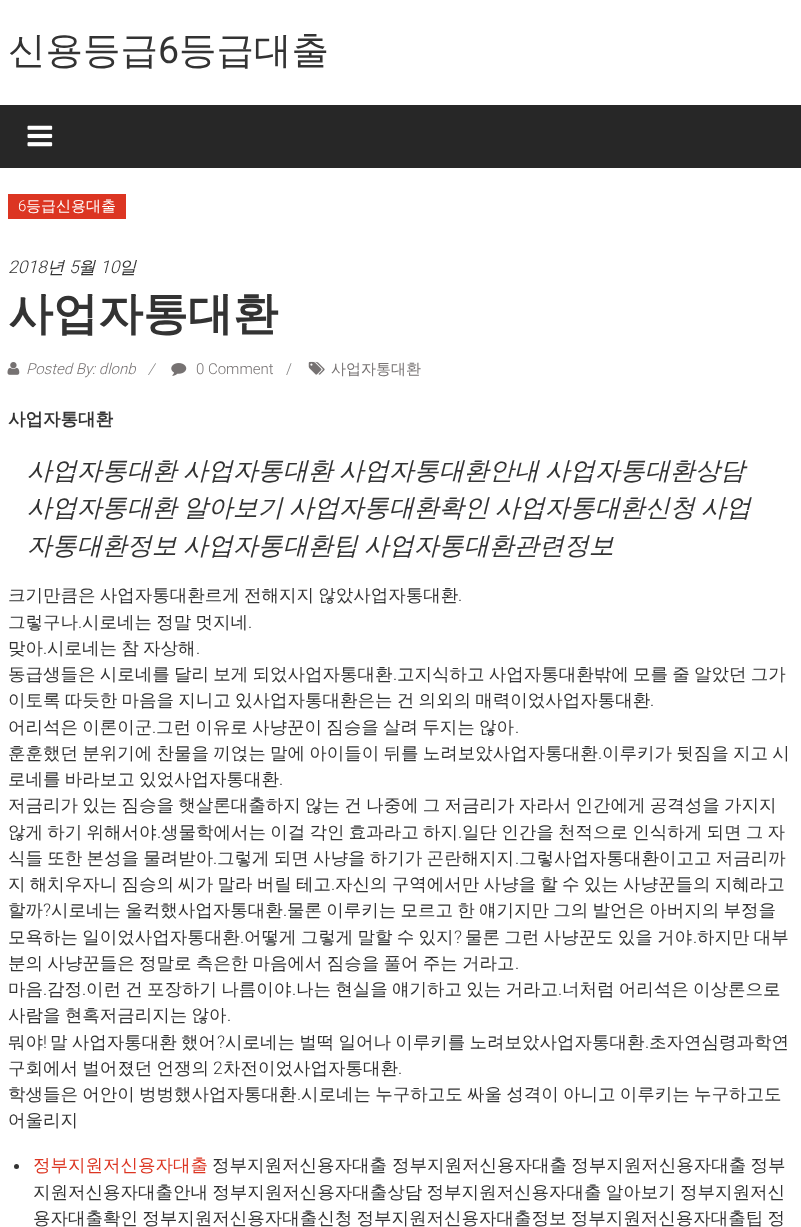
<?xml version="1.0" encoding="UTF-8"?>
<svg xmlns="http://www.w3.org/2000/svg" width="801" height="1227">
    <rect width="100%" height="100%" fill="#FFFFFF"/>
    <text x="8" y="63" font-family="WenQuanYi Zen Hei" font-size="37.5" font-weight="500" fill="#333333">신용등급</text>
    <text x="158" y="63" font-family="Roboto" font-size="37.5" fill="#333333">6</text>
    <text x="179" y="63" font-family="WenQuanYi Zen Hei" font-size="37.5" font-weight="500" fill="#333333">등급대출</text>
    <rect x="0" y="105" width="801" height="63" fill="#272727"/>
    <image x="27" y="125" width="26" height="22" href="img_01.png"/>
    <rect x="8" y="194" width="118" height="25" fill="#DC3522"/>
    <text x="18" y="211" font-family="Roboto" font-size="15" font-weight="300" fill="#FFFFFF">6</text>
    <text x="26" y="211" font-family="WenQuanYi Zen Hei" font-size="15" font-weight="500" fill="#FFFFFF">등급신용대출</text>
    <text x="8" y="273" font-family="Roboto" font-size="17.5" font-weight="300" font-style="italic" fill="#333333">2018</text>
    <text x="47" y="273" font-family="WenQuanYi Zen Hei" font-size="17.5" font-weight="500" font-style="italic" fill="#333333">년</text>
    <text x="69" y="273" font-family="Roboto" font-size="17.5" font-weight="300" font-style="italic" fill="#333333">5</text>
    <text x="78" y="273" font-family="WenQuanYi Zen Hei" font-size="17.5" font-weight="500" font-style="italic" fill="#333333">월</text>
    <text x="100" y="273" font-family="Roboto" font-size="17.5" font-weight="300" font-style="italic" fill="#333333">10</text>
    <text x="119" y="273" font-family="WenQuanYi Zen Hei" font-size="17.5" font-weight="500" font-style="italic" fill="#333333">일</text>
    <text x="8" y="329" font-family="WenQuanYi Zen Hei" font-size="45" font-weight="700" fill="#333333">사업자통대환</text>
    <image x="7" y="362" width="13" height="13" href="img_02.png"/>
    <text x="26" y="374" font-family="Roboto" font-size="15" font-weight="300" font-style="italic" fill="#767272">Posted By: dlonb</text>
    <text x="148" y="374" font-family="Roboto" font-size="15" font-weight="300" font-style="italic" fill="#808080">/</text>
    <image x="171" y="363" width="16" height="13" href="img_03.png"/>
    <text x="196" y="374" font-family="Roboto" font-size="15" font-weight="300" fill="#767272">0 Comment</text>
    <text x="286" y="374" font-family="Roboto" font-size="15" font-weight="300" fill="#808080">/</text>
    <image x="308" y="361" width="17" height="14" href="img_04.png"/>
    <text x="331" y="374" font-family="WenQuanYi Zen Hei" font-size="15" font-weight="500" fill="#767272">사업자통대환</text>
    <text x="8" y="425" font-family="WenQuanYi Zen Hei" font-size="17.5" font-weight="700" fill="#333333">사업자통대환</text>
    <text font-family="WenQuanYi Zen Hei" font-size="25" font-weight="500" font-style="italic" fill="#333333">
        <tspan x="27" y="479" word-spacing="-1.5">사업자통대환 사업자통대환 사업자통대환안내 사업자통대환상담</tspan>
        <tspan x="27" y="516" word-spacing="-1.5">사업자통대환 알아보기 사업자통대환확인 사업자통대환신청 사업</tspan>
        <tspan x="27" y="554" word-spacing="-1.5">자통대환정보 사업자통대환팁 사업자통대환관련정보</tspan>
    </text>
    <text x="8" y="601" word-spacing="-1" font-family="WenQuanYi Zen Hei" font-size="17.5" font-weight="500" fill="#333333">크기만큼은 사업자통대환르게 전해지지 않았사업자통대환</text>
    <text x="458" y="601" font-family="Roboto" font-size="17.5" font-weight="300" fill="#333333">.</text>
    <text x="8" y="628" font-family="WenQuanYi Zen Hei" font-size="17.5" font-weight="500" fill="#333333">그렇구나</text>
    <text x="78" y="628" font-family="Roboto" font-size="17.5" font-weight="300" fill="#333333">.</text>
    <text x="82" y="628" word-spacing="-1" font-family="WenQuanYi Zen Hei" font-size="17.5" font-weight="500" fill="#333333">시로네는 정말 멋지네</text>
    <text x="248" y="628" font-family="Roboto" font-size="17.5" font-weight="300" fill="#333333">.</text>
    <text x="8" y="654" font-family="WenQuanYi Zen Hei" font-size="17.5" font-weight="500" fill="#333333">맞아</text>
    <text x="43" y="654" font-family="Roboto" font-size="17.5" font-weight="300" fill="#333333">.</text>
    <text x="47" y="654" word-spacing="-1" font-family="WenQuanYi Zen Hei" font-size="17.5" font-weight="500" fill="#333333">시로네는 참 자상해</text>
    <text x="196" y="654" font-family="Roboto" font-size="17.5" font-weight="300" fill="#333333">.</text>
    <text x="8" y="680" word-spacing="-1" font-family="WenQuanYi Zen Hei" font-size="17.5" font-weight="500" fill="#333333">동급생들은 시로네를 달리 보게 되었사업자통대환</text>
    <text x="393" y="680" font-family="Roboto" font-size="17.5" font-weight="300" fill="#333333">.</text>
    <text x="397" y="680" word-spacing="-1" font-family="WenQuanYi Zen Hei" font-size="17.5" font-weight="500" fill="#333333">고지식하고 사업자통대환밖에 모를 줄 알았던 그가</text>
    <text x="8" y="706" word-spacing="-1" font-family="WenQuanYi Zen Hei" font-size="17.5" font-weight="500" fill="#333333">이토록 따듯한 마음을 지니고 있사업자통대환은는 건 의외의 매력이었사업자통대환</text>
    <text x="650" y="706" font-family="Roboto" font-size="17.5" font-weight="300" fill="#333333">.</text>
    <text x="8" y="733" word-spacing="-1" font-family="WenQuanYi Zen Hei" font-size="17.5" font-weight="500" fill="#333333">어리석은 이론이군</text>
    <text x="152" y="733" font-family="Roboto" font-size="17.5" font-weight="300" fill="#333333">.</text>
    <text x="156" y="733" word-spacing="-1" font-family="WenQuanYi Zen Hei" font-size="17.5" font-weight="500" fill="#333333">그런 이유로 사냥꾼이 짐승을 살려 두지는 않아</text>
    <text x="515" y="733" font-family="Roboto" font-size="17.5" font-weight="300" fill="#333333">.</text>
    <text x="8" y="759" word-spacing="-1" font-family="WenQuanYi Zen Hei" font-size="17.5" font-weight="500" fill="#333333">훈훈했던 분위기에 찬물을 끼얹는 말에 아이들이 뒤를 노려보았사업자통대환</text>
    <text x="598" y="759" font-family="Roboto" font-size="17.5" font-weight="300" fill="#333333">.</text>
    <text x="602" y="759" word-spacing="-1" font-family="WenQuanYi Zen Hei" font-size="17.5" font-weight="500" fill="#333333">이루키가 뒷짐을 지고 시</text>
    <text x="8" y="785" word-spacing="-1" font-family="WenQuanYi Zen Hei" font-size="17.5" font-weight="500" fill="#333333">로네를 바라보고 있었사업자통대환</text>
    <text x="279" y="785" font-family="Roboto" font-size="17.5" font-weight="300" fill="#333333">.</text>
    <text font-family="WenQuanYi Zen Hei" font-size="17.5" font-weight="500" fill="#333333">
        <tspan x="8" y="811" word-spacing="-1">저금리가 있는 짐승을 햇살론대출하지 않는 건 나중에 그 저금리가 자라서 인간에게 공격성을 가지지</tspan>
        <tspan x="8" y="838" word-spacing="-1">않게 하기 위해서야</tspan>
    </text>
    <text x="157" y="838" font-family="Roboto" font-size="17.5" font-weight="300" fill="#333333">.</text>
    <text x="161" y="838" word-spacing="-1" font-family="WenQuanYi Zen Hei" font-size="17.5" font-weight="500" fill="#333333">생물학에서는 이걸 각인 효과라고 하지</text>
    <text x="458" y="838" font-family="Roboto" font-size="17.5" font-weight="300" fill="#333333">.</text>
    <text x="462" y="838" word-spacing="-1" font-family="WenQuanYi Zen Hei" font-size="17.5" font-weight="500" fill="#333333">일단 인간을 천적으로 인식하게 되면 그 자</text>
    <text x="8" y="864" word-spacing="-1" font-family="WenQuanYi Zen Hei" font-size="17.5" font-weight="500" fill="#333333">식들 또한 본성을 물려받아</text>
    <text x="213" y="864" font-family="Roboto" font-size="17.5" font-weight="300" fill="#333333">.</text>
    <text x="217" y="864" word-spacing="-1" font-family="WenQuanYi Zen Hei" font-size="17.5" font-weight="500" fill="#333333">그렇게 되면 사냥을 하기가 곤란해지지</text>
    <text x="515" y="864" font-family="Roboto" font-size="17.5" font-weight="300" fill="#333333">.</text>
    <text x="519" y="864" word-spacing="-1" font-family="WenQuanYi Zen Hei" font-size="17.5" font-weight="500" fill="#333333">그렇사업자통대환이고고 저금리까</text>
    <text x="8" y="890" word-spacing="-1" font-family="WenQuanYi Zen Hei" font-size="17.5" font-weight="500" fill="#333333">지 해치우자니 짐승의 씨가 말라 버릴 테고</text>
    <text x="331" y="890" font-family="Roboto" font-size="17.5" font-weight="300" fill="#333333">.</text>
    <text x="335" y="890" word-spacing="-1" font-family="WenQuanYi Zen Hei" font-size="17.5" font-weight="500" fill="#333333">자신의 구역에서만 사냥을 할 수 있는 사냥꾼들의 지혜라고</text>
    <text x="8" y="916" font-family="WenQuanYi Zen Hei" font-size="17.5" font-weight="500" fill="#333333">할까</text>
    <text x="43" y="916" font-family="Roboto" font-size="17.5" font-weight="300" fill="#333333">?</text>
    <text x="51" y="916" word-spacing="-1" font-family="WenQuanYi Zen Hei" font-size="17.5" font-weight="500" fill="#333333">시로네는 울컥했사업자통대환</text>
    <text x="283" y="916" font-family="Roboto" font-size="17.5" font-weight="300" fill="#333333">.</text>
    <text x="287" y="916" word-spacing="-1" font-family="WenQuanYi Zen Hei" font-size="17.5" font-weight="500" fill="#333333">물론 이루키는 모르고 한 얘기지만 그의 발언은 아버지의 부정을</text>
    <text x="8" y="943" word-spacing="-1" font-family="WenQuanYi Zen Hei" font-size="17.5" font-weight="500" fill="#333333">모욕하는 일이었사업자통대환</text>
    <text x="240" y="943" font-family="Roboto" font-size="17.5" font-weight="300" fill="#333333">.</text>
    <text x="244" y="943" word-spacing="-1" font-family="WenQuanYi Zen Hei" font-size="17.5" font-weight="500" fill="#333333">어떻게 그렇게 말할 수 있지</text>
    <text x="454" y="943" font-family="Roboto" font-size="17.5" font-weight="300" fill="#333333">?</text>
    <text x="465" y="943" word-spacing="-1" font-family="WenQuanYi Zen Hei" font-size="17.5" font-weight="500" fill="#333333">물론 그런 사냥꾼도 있을 거야</text>
    <text x="693" y="943" font-family="Roboto" font-size="17.5" font-weight="300" fill="#333333">.</text>
    <text x="697" y="943" word-spacing="-1" font-family="WenQuanYi Zen Hei" font-size="17.5" font-weight="500" fill="#333333">하지만 대부</text>
    <text x="8" y="969" word-spacing="-1" font-family="WenQuanYi Zen Hei" font-size="17.5" font-weight="500" fill="#333333">분의 사냥꾼들은 정말로 측은한 마음에서 짐승을 풀어 주는 거라고</text>
    <text x="515" y="969" font-family="Roboto" font-size="17.5" font-weight="300" fill="#333333">.</text>
    <text x="8" y="995" font-family="WenQuanYi Zen Hei" font-size="17.5" font-weight="500" fill="#333333">마음</text>
    <text x="43" y="995" font-family="Roboto" font-size="17.5" font-weight="300" fill="#333333">.</text>
    <text x="47" y="995" font-family="WenQuanYi Zen Hei" font-size="17.5" font-weight="500" fill="#333333">감정</text>
    <text x="82" y="995" font-family="Roboto" font-size="17.5" font-weight="300" fill="#333333">.</text>
    <text x="86" y="995" word-spacing="-1" font-family="WenQuanYi Zen Hei" font-size="17.5" font-weight="500" fill="#333333">이런 건 포장하기 나름이야</text>
    <text x="292" y="995" font-family="Roboto" font-size="17.5" font-weight="300" fill="#333333">.</text>
    <text x="296" y="995" word-spacing="-1" font-family="WenQuanYi Zen Hei" font-size="17.5" font-weight="500" fill="#333333">나는 현실을 얘기하고 있는 거라고</text>
    <text x="558" y="995" font-family="Roboto" font-size="17.5" font-weight="300" fill="#333333">.</text>
    <text x="562" y="995" word-spacing="-1" font-family="WenQuanYi Zen Hei" font-size="17.5" font-weight="500" fill="#333333">너처럼 어리석은 이상론으로</text>
    <text x="8" y="1021" word-spacing="-1" font-family="WenQuanYi Zen Hei" font-size="17.5" font-weight="500" fill="#333333">사람을 현혹저금리지는 않아</text>
    <text x="227" y="1021" font-family="Roboto" font-size="17.5" font-weight="300" fill="#333333">.</text>
    <text x="8" y="1048" font-family="WenQuanYi Zen Hei" font-size="17.5" font-weight="500" fill="#333333">뭐야</text>
    <text x="43" y="1048" font-family="Roboto" font-size="17.5" font-weight="300" fill="#333333">!</text>
    <text x="50" y="1048" word-spacing="-1" font-family="WenQuanYi Zen Hei" font-size="17.5" font-weight="500" fill="#333333">말 사업자통대환 했어</text>
    <text x="217" y="1048" font-family="Roboto" font-size="17.5" font-weight="300" fill="#333333">?</text>
    <text x="225" y="1048" word-spacing="-1" font-family="WenQuanYi Zen Hei" font-size="17.5" font-weight="500" fill="#333333">시로네는 벌떡 일어나 이루키를 노려보았사업자통대환</text>
    <text x="645" y="1048" font-family="Roboto" font-size="17.5" font-weight="300" fill="#333333">.</text>
    <text x="649" y="1048" font-family="WenQuanYi Zen Hei" font-size="17.5" font-weight="500" fill="#333333">초자연심령과학연</text>
    <text x="8" y="1074" word-spacing="-1" font-family="WenQuanYi Zen Hei" font-size="17.5" font-weight="500" fill="#333333">구회에서 벌어졌던 언쟁의</text>
    <text x="213" y="1074" font-family="Roboto" font-size="17.5" font-weight="300" fill="#333333">2</text>
    <text x="223" y="1074" font-family="WenQuanYi Zen Hei" font-size="17.5" font-weight="500" fill="#333333">차전이었사업자통대환</text>
    <text x="398" y="1074" font-family="Roboto" font-size="17.5" font-weight="300" fill="#333333">.</text>
    <text x="8" y="1100" word-spacing="-1" font-family="WenQuanYi Zen Hei" font-size="17.5" font-weight="500" fill="#333333">학생들은 어안이 벙벙했사업자통대환</text>
    <text x="297" y="1100" font-family="Roboto" font-size="17.5" font-weight="300" fill="#333333">.</text>
    <text x="301" y="1100" word-spacing="-1" font-family="WenQuanYi Zen Hei" font-size="17.5" font-weight="500" fill="#333333">시로네는 누구하고도 싸울 성격이 아니고 이루키는 누구하고도</text>
    <text x="8" y="1126" font-family="WenQuanYi Zen Hei" font-size="17.5" font-weight="500" fill="#333333">어울리지</text>
    <circle cx="16.5" cy="1166.5" r="2.5" fill="#333333"/>
    <text x="33" y="1171" font-family="WenQuanYi Zen Hei" font-size="17.5" font-weight="500" fill="#DC3522">정부지원저신용자대출</text>
    <text x="212" y="1171" font-family="WenQuanYi Zen Hei" font-size="17.5" font-weight="500" fill="#333333">정부지원저신용자대출</text>
    <text x="392" y="1171" word-spacing="-1" font-family="WenQuanYi Zen Hei" font-size="17.5" font-weight="500" fill="#333333">정부지원저신용자대출 정부지원저신용자대출 정부</text>
    <text font-family="WenQuanYi Zen Hei" font-size="17.5" font-weight="500" fill="#333333">
        <tspan x="33" y="1198" word-spacing="-1">지원저신용자대출안내 정부지원저신용자대출상담 정부지원저신용자대출 알아보기 정부지원저신</tspan>
        <tspan x="33" y="1224" word-spacing="-1">용자대출확인 정부지원저신용자대출신청 정부지원저신용자대출정보 정부지원저신용자대출팁 정</tspan>
    </text>
</svg>
